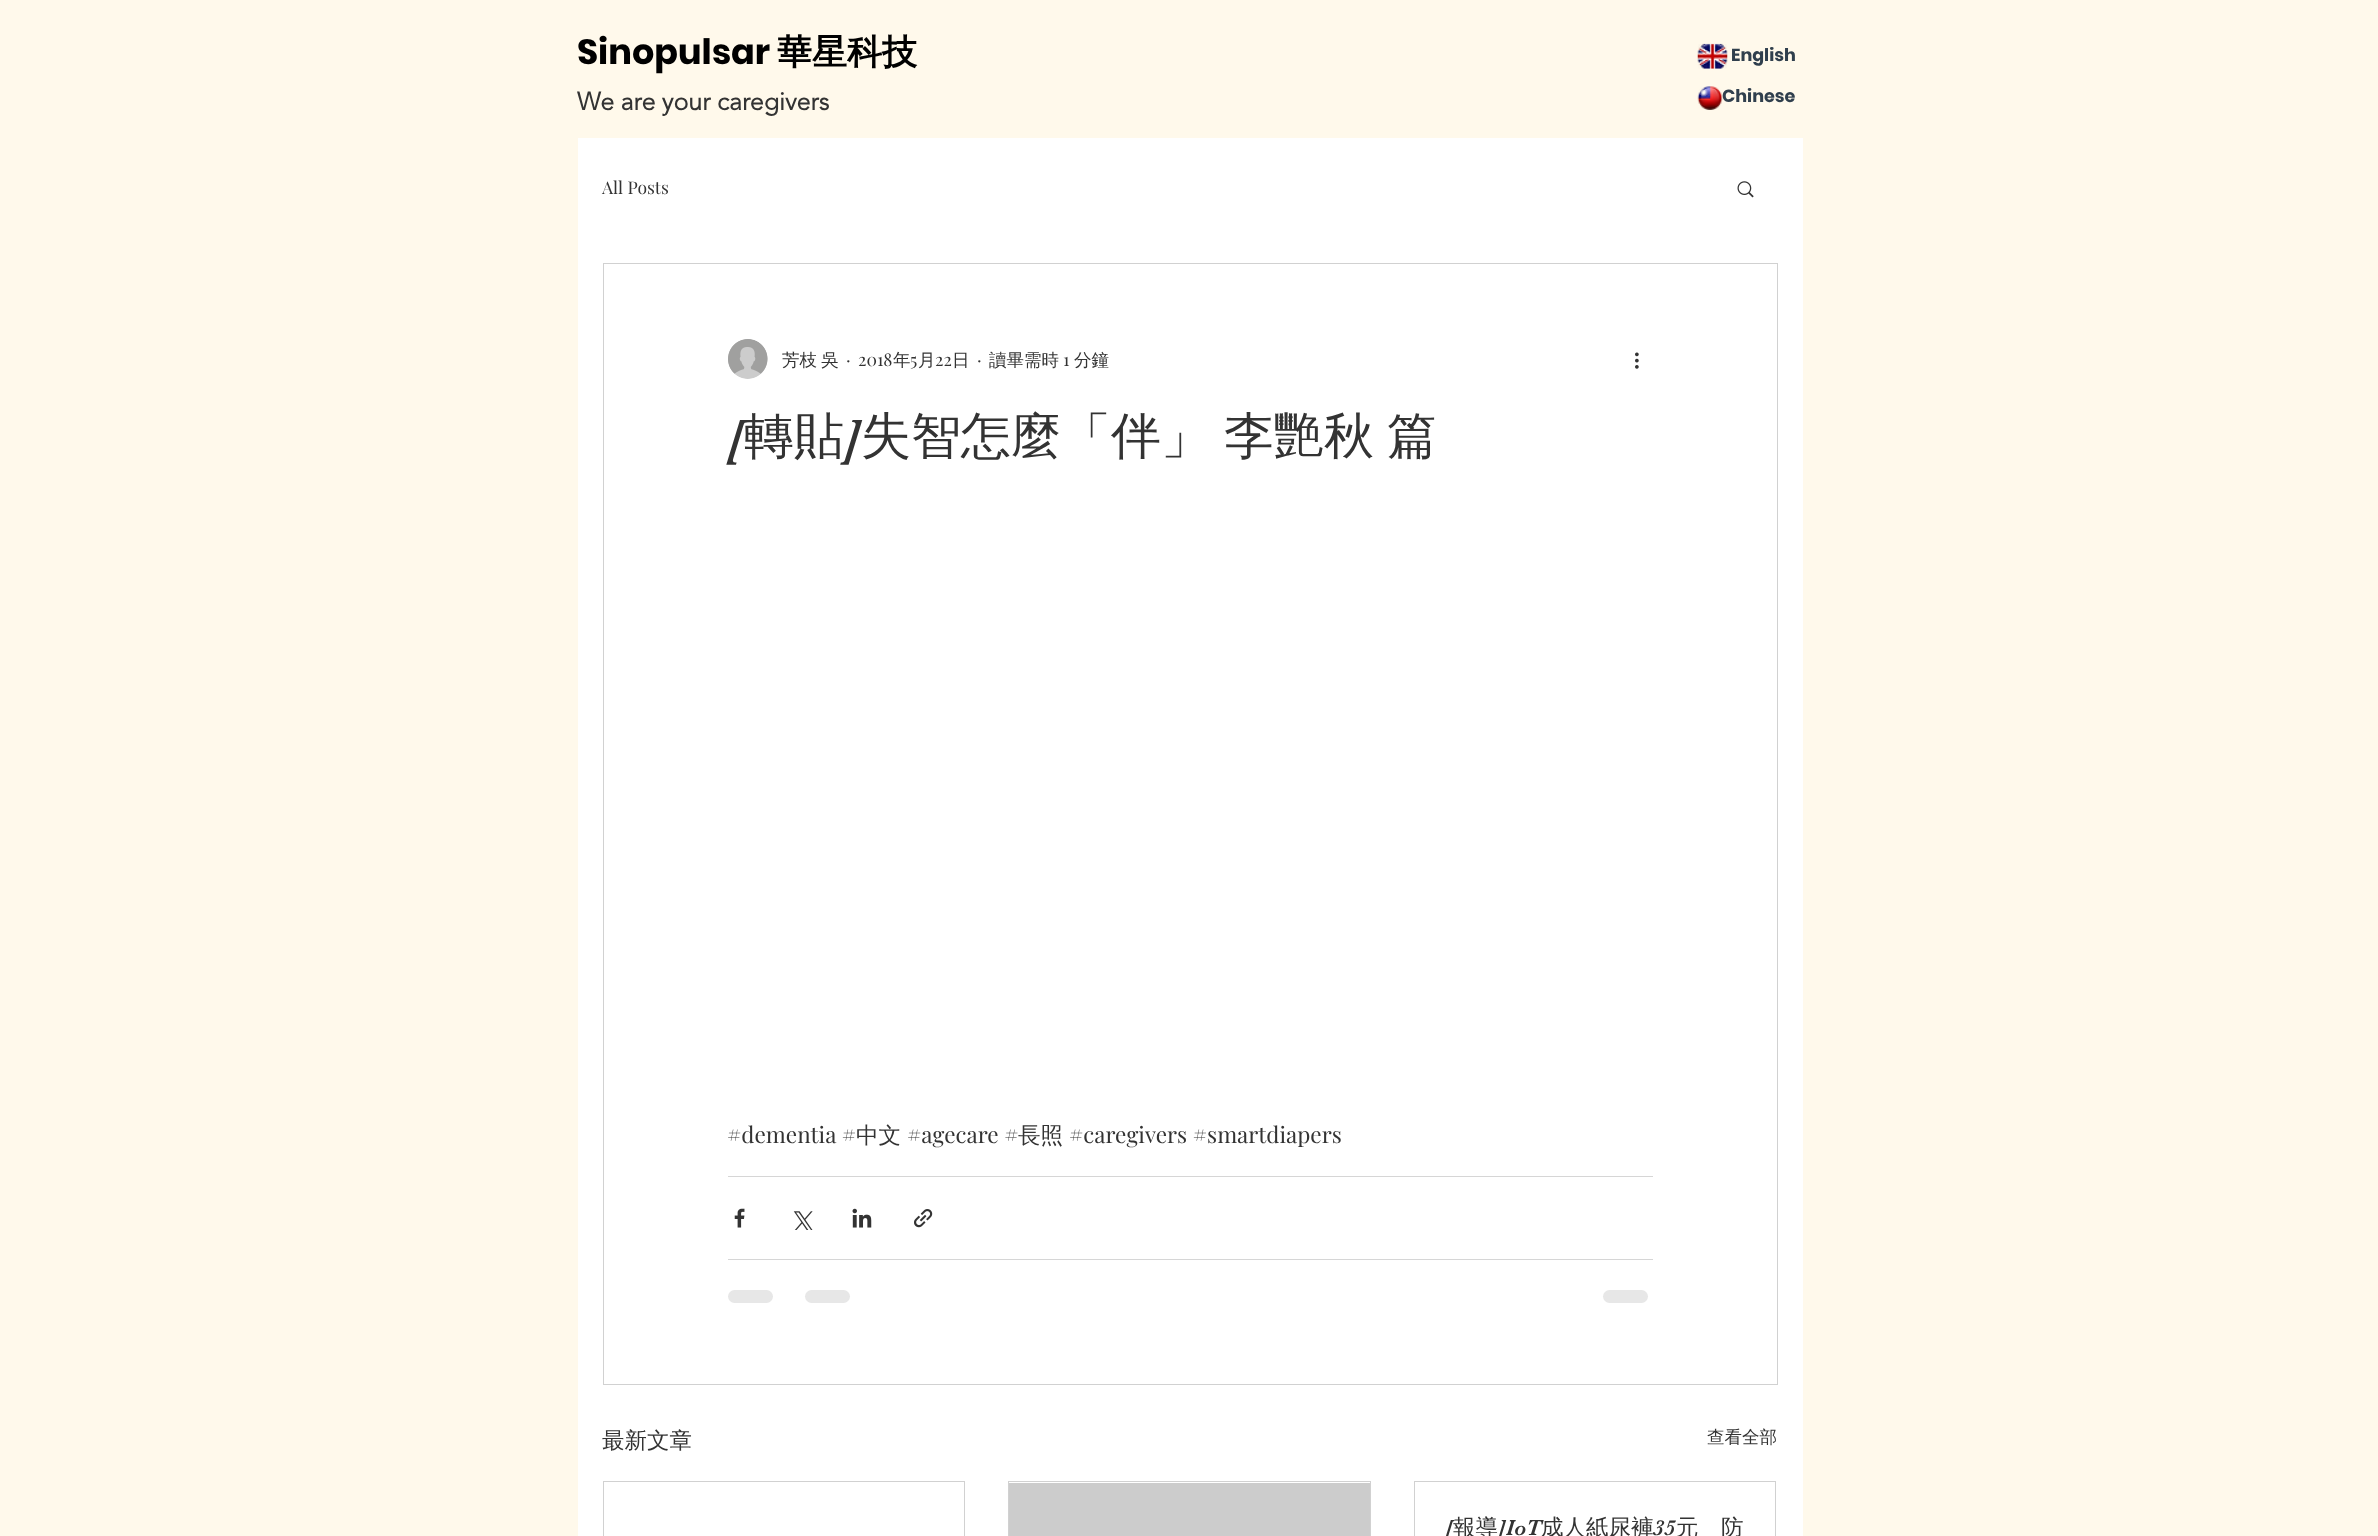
<?xml version="1.0" encoding="UTF-8"?>
<svg xmlns="http://www.w3.org/2000/svg" width="2378" height="1536">
    <rect width="100%" height="100%" fill="#FFF9EB"/>
    <text x="577" y="64" font-family="Poppins" font-size="35" font-weight="700" fill="#000000">Sinopulsar</text>
    <text x="777" y="64" font-family="WenQuanYi Zen Hei" font-size="35" font-weight="700" fill="#000000">華星科技</text>
    <image x="1697" y="43" width="31" height="26" href="img_01.png"/>
    <text x="1731" y="61" font-family="Poppins" font-size="17.5" font-weight="700" fill="#303F4D">English</text>
    <text x="577" y="110" font-family="'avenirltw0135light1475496'" font-size="25" font-weight="700" fill="#333333">We are your caregivers</text>
    <text x="1722" y="102" font-family="Poppins" font-size="17.5" font-weight="700" fill="#303F4D">Chinese</text>
    <image x="1697" y="86" width="26" height="24" href="img_02.png"/>
    <rect x="578" y="138" width="1225" height="1398" fill="#FFFFFF"/>
    <text x="602" y="194" font-family="Playfair Display" font-size="17.5" fill="#333333">All Posts</text>
    <image x="1737" y="181" width="17" height="17" href="img_03.png"/>
    <rect x="603.5" y="263.5" width="1174" height="1121" fill="none" stroke="#D1D1D1"/>
    <image x="728" y="339" width="40" height="40" href="img_04.png"/>
    <text x="782" y="366" word-spacing="-1" font-family="WenQuanYi Zen Hei" font-size="17.5" font-weight="500" fill="#333333">芳枝 吳</text>
    <text x="846" y="366" font-family="Playfair Display" font-size="17.5" fill="#333333">·</text>
    <text x="858" y="366" font-family="Playfair Display" font-size="17.5" fill="#333333">2018</text>
    <text x="893" y="366" font-family="WenQuanYi Zen Hei" font-size="17.5" font-weight="500" fill="#333333">年</text>
    <text x="910" y="366" font-family="Playfair Display" font-size="17.5" fill="#333333">5</text>
    <text x="918" y="366" font-family="WenQuanYi Zen Hei" font-size="17.5" font-weight="500" fill="#333333">月</text>
    <text x="935" y="366" font-family="Playfair Display" font-size="17.5" fill="#333333">22</text>
    <text x="952" y="366" font-family="WenQuanYi Zen Hei" font-size="17.5" font-weight="500" fill="#333333">日</text>
    <text x="977" y="366" font-family="Playfair Display" font-size="17.5" fill="#333333">·</text>
    <text x="989" y="366" font-family="WenQuanYi Zen Hei" font-size="17.5" font-weight="500" fill="#333333">讀畢需時</text>
    <text x="1063" y="366" font-family="Playfair Display" font-size="17.5" fill="#333333">1</text>
    <text x="1074" y="366" font-family="WenQuanYi Zen Hei" font-size="17.5" font-weight="500" fill="#333333">分鐘</text>
    <image x="1635" y="352" width="4" height="17" href="img_05.png"/>
    <text x="727" y="453" font-family="'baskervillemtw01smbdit'" font-size="50" fill="#333333">[</text>
    <text x="744" y="453" font-family="WenQuanYi Zen Hei" font-size="50" font-weight="500" fill="#333333">轉貼</text>
    <text x="844" y="453" font-family="'baskervillemtw01smbdit'" font-size="50" fill="#333333">]</text>
    <text x="861" y="453" word-spacing="-2" font-family="WenQuanYi Zen Hei" font-size="50" font-weight="500" fill="#333333">失智怎麼「伴」 李艷秋 篇</text>
    <text x="727" y="1143" font-family="Playfair Display" font-size="22.5" fill="#333333">#dementia #</text>
    <text x="856" y="1143" font-family="WenQuanYi Zen Hei" font-size="22.5" font-weight="500" fill="#333333">中文</text>
    <text x="907" y="1143" font-family="Playfair Display" font-size="22.5" fill="#333333">#agecare #</text>
    <text x="1018" y="1143" font-family="WenQuanYi Zen Hei" font-size="22.5" font-weight="500" fill="#333333">長照</text>
    <text x="1069" y="1143" font-family="Playfair Display" font-size="22.5" fill="#333333">#caregivers #smartdiapers</text>
    <rect x="728" y="1176" width="925" height="1" fill="#D6D6D6"/>
    <image x="734" y="1208" width="11" height="20" href="img_06.png"/>
    <image x="793" y="1211" width="20" height="19" href="img_07.png"/>
    <image x="852" y="1208" width="20" height="20" href="img_08.png"/>
    <image x="914" y="1209" width="19" height="19" href="img_09.png"/>
    <rect x="728" y="1259" width="925" height="1" fill="#D6D6D6"/>
    <rect x="728" y="1290" width="45" height="13" rx="6.5" fill="#E7E7E7"/>
    <rect x="805" y="1290" width="45" height="13" rx="6.5" fill="#E7E7E7"/>
    <rect x="1603" y="1290" width="45" height="13" rx="6.5" fill="#E7E7E7"/>
    <text x="602" y="1448" font-family="WenQuanYi Zen Hei" font-size="22.5" font-weight="500" fill="#333333">最新文章</text>
    <text x="1707" y="1443" font-family="WenQuanYi Zen Hei" font-size="17.5" font-weight="500" fill="#333333">查看全部</text>
    <rect x="603.5" y="1481.5" width="361" height="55" fill="none" stroke="#D1D1D1"/>
    <rect x="1008.5" y="1481.5" width="362" height="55" fill="none" stroke="#D1D1D1"/>
    <rect x="1009" y="1483" width="361" height="53" fill="#CCCCCC"/>
    <rect x="1414.5" y="1481.5" width="361" height="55" fill="none" stroke="#D1D1D1"/>
    <text x="1445" y="1535" font-family="'baskervillemtw01smbdit'" font-size="22.5" fill="#333333">[</text>
    <text x="1453" y="1535" font-family="WenQuanYi Zen Hei" font-size="22.5" font-weight="500" fill="#333333">報導</text>
    <text x="1498" y="1535" font-family="'baskervillemtw01smbdit'" font-size="22.5" fill="#333333">]IoT</text>
    <text x="1541" y="1535" font-family="WenQuanYi Zen Hei" font-size="22.5" font-weight="500" fill="#333333">成人紙尿褲</text>
    <text x="1653" y="1535" font-family="'baskervillemtw01smbdit'" font-size="22.5" fill="#333333">35</text>
    <text x="1676" y="1535" font-family="WenQuanYi Zen Hei" font-size="22.5" font-weight="500" fill="#333333">元　防</text>
</svg>
